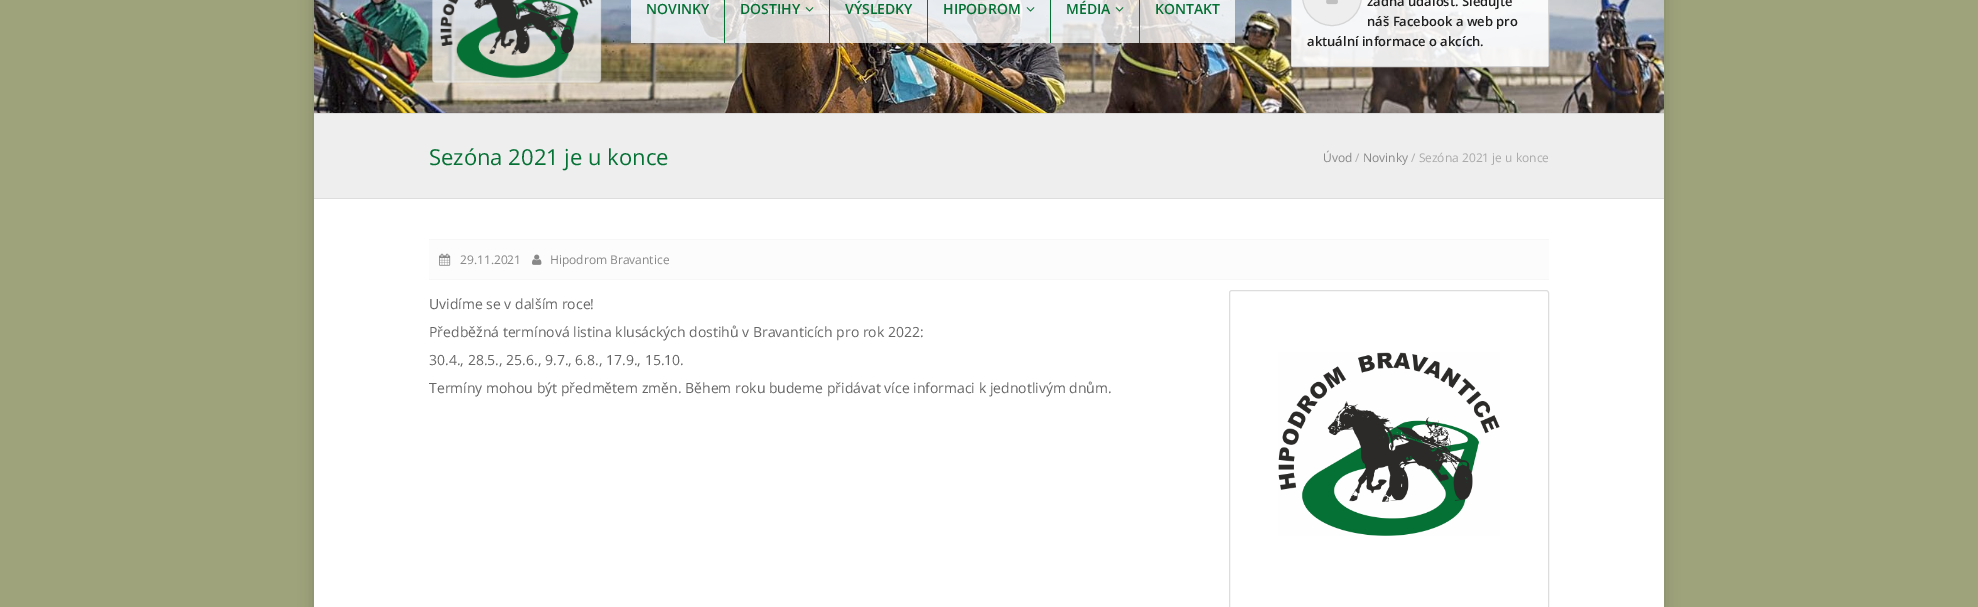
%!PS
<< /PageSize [1978 607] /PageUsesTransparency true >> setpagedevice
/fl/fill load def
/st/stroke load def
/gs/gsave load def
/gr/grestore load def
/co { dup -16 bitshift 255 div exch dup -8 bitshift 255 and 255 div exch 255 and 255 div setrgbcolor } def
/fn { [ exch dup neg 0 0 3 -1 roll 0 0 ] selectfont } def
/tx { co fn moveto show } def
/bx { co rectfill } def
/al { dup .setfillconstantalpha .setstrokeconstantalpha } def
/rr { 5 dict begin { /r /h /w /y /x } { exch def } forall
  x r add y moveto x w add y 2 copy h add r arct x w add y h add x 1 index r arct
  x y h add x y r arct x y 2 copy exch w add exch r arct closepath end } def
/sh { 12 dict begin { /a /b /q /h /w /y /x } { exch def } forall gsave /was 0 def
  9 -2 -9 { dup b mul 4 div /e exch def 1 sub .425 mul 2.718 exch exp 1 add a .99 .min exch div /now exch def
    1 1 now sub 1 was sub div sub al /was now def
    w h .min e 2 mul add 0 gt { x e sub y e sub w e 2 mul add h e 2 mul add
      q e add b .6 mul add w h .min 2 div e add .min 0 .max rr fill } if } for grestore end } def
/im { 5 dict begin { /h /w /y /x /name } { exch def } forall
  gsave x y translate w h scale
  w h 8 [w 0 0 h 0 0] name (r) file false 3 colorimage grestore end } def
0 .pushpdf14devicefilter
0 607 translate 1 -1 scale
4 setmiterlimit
0 0 1978 607 16#9EA37B bx
16#000000 co
314 -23 1350 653 0 7.5 .15 sh
314 199 1350 408 16#FFFFFF bx
(media/1.raw) 314 0 1350 113 im
(media/2.raw) 432 0 170 83 im
0.8 al
631 0 93 43 16#FFFFFF bx
1 al
724 0 1 43 16#067135 bx
0.8 al
725 0 104 43 16#FFFFFF bx
1 al
829 0 1 43 16#067135 bx
(media/3.raw) 805 7 9 5 im
0.8 al
830 0 97 43 16#FFFFFF bx
1 al
927 0 1 43 16#067135 bx
0.8 al
928 0 122 43 16#FFFFFF bx
1 al
1050 0 1 43 16#067135 bx
(media/4.raw) 1026 7 9 5 im
0.8 al
1051 0 88 43 16#FFFFFF bx
1 al
1139 0 1 43 16#067135 bx
(media/5.raw) 1115 7 9 5 im
0.8 al
1140 0 95 43 16#FFFFFF bx
1 al
16#D5D5D5 co
1291.5 -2.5 257 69 1.5 rr st
0.9 al
1292 0 256 66 16#FFFFFF bx
1 al
16#EEEEEE co
1302.5 -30.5 59 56 29.5 rr gs fl gr
16#D5D5D5 co
st
(media/6.raw) 1326 0 12 5 im
314 114 1350 84 16#EEEEEE bx
314 113 1350 1 16#DDDDDD bx
314 198 1350 1 16#DDDDDD bx
429 240 1120 39 16#FCFCFC bx
429 239 1120 1 16#F7F7F7 bx
429 279 1120 1 16#F7F7F7 bx
(media/7.raw) 439 253 12 13 im
(media/8.raw) 532 254 10 11 im
16#DDDDDD co
1229.5 290.5 319 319 2.5 rr st
(media/9.raw) 1278 352 222 184 im
(NOVINKY) 646 14 /OpenSans-SemiBold 14 16#067135 tx
(DOSTIHY) 740 14 /OpenSans-SemiBold 14 16#067135 tx
(VÝSLEDKY) 845 14 /OpenSans-SemiBold 14 16#067135 tx
(HIPODROM) 943 14 /OpenSans-SemiBold 14 16#067135 tx
(MÉDIA) 1066 14 /OpenSans-SemiBold 14 16#067135 tx
(KONTAKT) 1155 14 /OpenSans-SemiBold 14 16#067135 tx
(žádná událost. Sledujte) 1367 6 /OpenSans-SemiBold 13 16#202020 tx
(náš Facebook a web pro) 1367 26 /OpenSans-SemiBold 13 16#202020 tx
(aktuální informace o akcích.) 1307 46 /OpenSans-SemiBold 13 16#202020 tx
(Sezóna 2021 je u konce) 429 165 /OpenSans-Regular 22 16#067135 tx
(Úvod) 1323 162 /OpenSans-Regular 12 16#888888 tx
(/) 1355 162 /OpenSans-Regular 12 16#AAAAAA tx
(Novinky) 1363 162 /OpenSans-Regular 12 16#888888 tx
(/ Sezóna 2021 je u konce) 1411 162 /OpenSans-Regular 12 16#AAAAAA tx
(29.11.2021) 460 264 /OpenSans-Regular 12 16#888888 tx
(Hipodrom Bravantice) 550 264 /OpenSans-Regular 12 16#888888 tx
(Uvidíme se v dalším roce!) 429 309 /OpenSans-Regular 14 16#666666 tx
(Předběžná termínová listina klusáckých dostihů v Bravanticích pro rok 2022:) 429 337 /OpenSans-Regular 14 16#666666 tx
(30.4., 28.5., 25.6., 9.7., 6.8., 17.9., 15.10.) 429 365 /OpenSans-Regular 14 16#666666 tx
(Termíny mohou být předmětem změn. Během roku budeme přidávat více informaci k jednotlivým dnům.) 429 393 /OpenSans-Regular 14 16#666666 tx
.poppdf14devicefilter showpage
